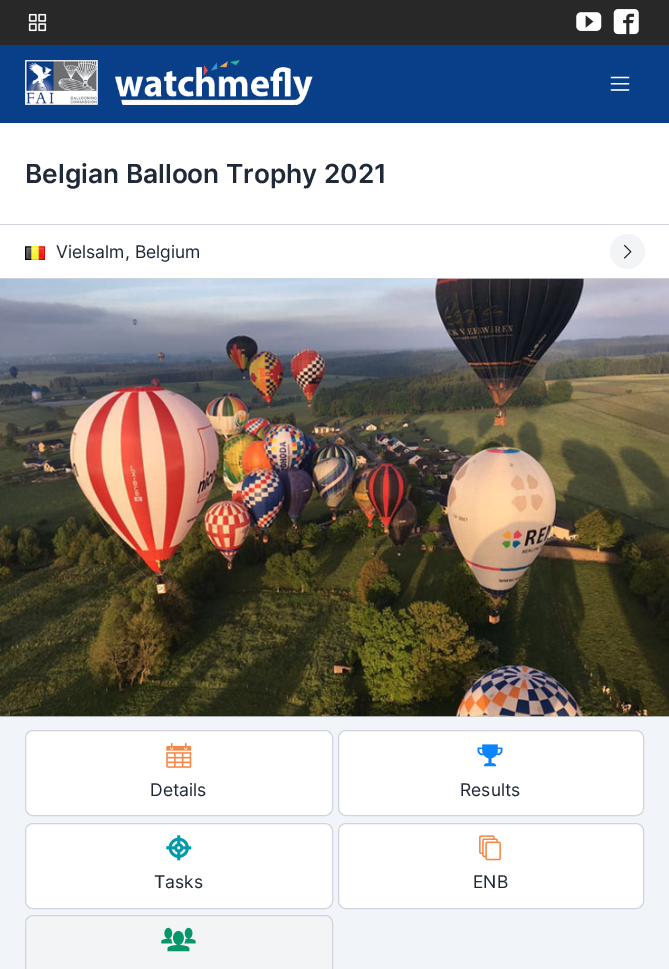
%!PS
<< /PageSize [669 969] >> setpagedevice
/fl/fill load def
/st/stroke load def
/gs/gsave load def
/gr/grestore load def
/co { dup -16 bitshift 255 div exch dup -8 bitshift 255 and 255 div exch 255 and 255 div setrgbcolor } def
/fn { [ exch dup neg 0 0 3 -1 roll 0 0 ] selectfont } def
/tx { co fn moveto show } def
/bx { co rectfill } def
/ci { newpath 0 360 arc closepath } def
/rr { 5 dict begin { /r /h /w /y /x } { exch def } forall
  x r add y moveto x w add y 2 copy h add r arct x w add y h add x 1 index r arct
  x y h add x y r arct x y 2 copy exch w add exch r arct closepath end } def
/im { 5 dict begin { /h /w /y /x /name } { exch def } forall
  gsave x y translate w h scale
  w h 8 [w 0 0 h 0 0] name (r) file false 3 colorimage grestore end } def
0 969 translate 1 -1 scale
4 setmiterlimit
0 0 669 969 16#F1F4F9 bx
0 0 669 45 16#282828 bx
(media/1.raw) 28 13 19 19 im
(media/2.raw) 576 12 26 19 im
(media/3.raw) 613 9 26 26 im
0 45 669 78 16#093F89 bx
(media/4.raw) 25 60 288 45 im
(media/5.raw) 610 76 20 15 im
0 123 669 155 16#FFFFFF bx
0 224 669 1 16#D1D5DB bx
(media/6.raw) 25 246 20 14 im
16#F3F4F6 co
627.5 251.5 17.5 ci fl
(media/7.raw) 624 244 8 15 im
0 278 669 1 16#D1D5DB bx
0 716 669 1 16#D1D5DB bx
(media/8.raw) 0 278 669 439 im
16#FFFFFF co
25.5 730.5 307 85 7.5 rr gs fl gr
16#D1D5DB co
st
(media/9.raw) 166 742 26 26 im
16#FFFFFF co
338.5 730.5 305 85 7.5 rr gs fl gr
16#D1D5DB co
st
(media/10.raw) 477 744 26 23 im
16#FFFFFF co
25.5 823.5 307 85 7.5 rr gs fl gr
16#D1D5DB co
st
(media/11.raw) 166 835 26 26 im
16#FFFFFF co
338.5 823.5 305 85 7.5 rr gs fl gr
16#D1D5DB co
st
(media/12.raw) 479 835 22 26 im
16#F3F4F6 co
25.5 915.5 307 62 7.5 rr gs fl gr
16#D1D5DB co
st
(media/13.raw) 161 927 35 25 im
(Belgian Balloon Trophy 2021) 25 183 /Inter-SemiBold 26.25 16#1F2937 tx
(Vielsalm, Belgium) 56 258 /Inter-Regular 17.5 16#1F2937 tx
(Details) 150 796 /Inter-Regular 17.5 16#1F2937 tx
(Results) 460 796 /Inter-Regular 17.5 16#1F2937 tx
(Tasks) 154 888 /Inter-Regular 17.5 16#1F2937 tx
(ENB) 473 888 /Inter-Regular 17.5 16#1F2937 tx
showpage
